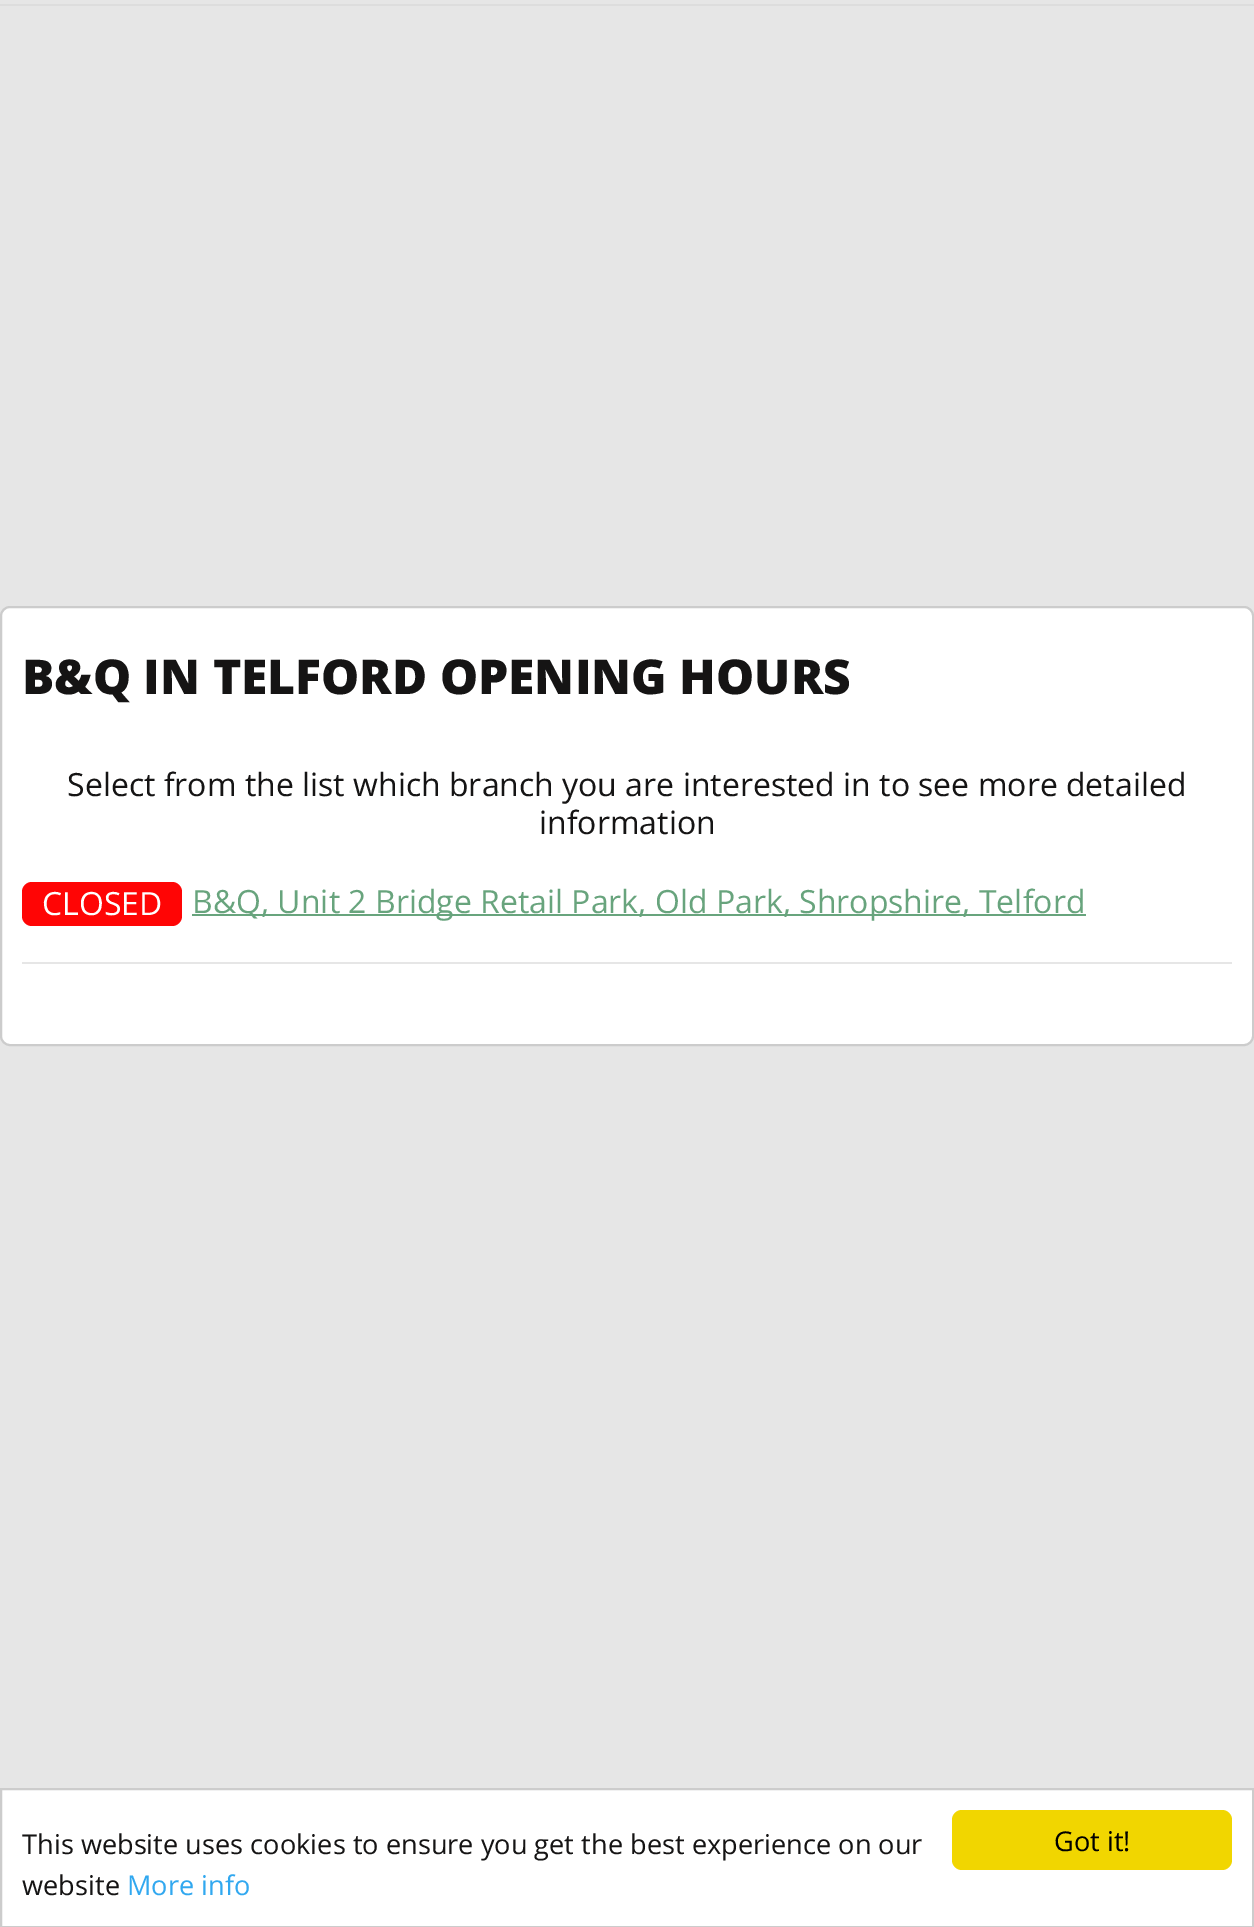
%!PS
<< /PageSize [1254 1927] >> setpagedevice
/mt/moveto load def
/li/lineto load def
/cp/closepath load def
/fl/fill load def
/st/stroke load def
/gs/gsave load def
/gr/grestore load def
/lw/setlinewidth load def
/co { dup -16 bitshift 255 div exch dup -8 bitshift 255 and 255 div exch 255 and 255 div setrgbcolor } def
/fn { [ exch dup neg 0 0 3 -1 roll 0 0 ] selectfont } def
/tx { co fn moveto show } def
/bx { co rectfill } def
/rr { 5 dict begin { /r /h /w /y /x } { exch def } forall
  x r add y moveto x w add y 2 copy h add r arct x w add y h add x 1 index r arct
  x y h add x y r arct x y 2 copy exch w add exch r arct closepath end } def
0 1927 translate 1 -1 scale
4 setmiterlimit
0 0 1254 1927 16#E6E6E6 bx
0 4 1254 2 16#DDDDDD bx
16#FFFFFF co
1 607 1252 438 9 rr gs fl gr
16#CCCCCC co
2 lw
st
22 962 1210 2 16#E6E6E6 bx
16#FF0505 co
22 882 160 44 10 rr fl
192 914 894 2 16#68A47D bx
16#FFFFFF co
1 1789 mt 1253 1789 li 1253 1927 li 1 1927 li cp gs fl gr
16#CCCCCC co
st
16#F1D600 co
952 1810 280 60 10 rr fl
(B&Q IN TELFORD OPENING HOURS) 22 694 /OpenSans-ExtraBold 48 16#151414 tx
(Select from the list which branch you are interested in to see more detailed) 67 796 /OpenSans-Regular 32 16#151414 tx
(information) 539 834 /OpenSans-Regular 32 16#151414 tx
(CLOSED) 42 915 /OpenSans-Regular 32 16#FFFFFF tx
(B&Q, Unit 2 Bridge Retail Park, Old Park, Shropshire, Telford) 192 913 /OpenSans-Regular 32 16#68A47D tx
(This website uses cookies to ensure you get the best experience on our) 22 1854 /OpenSans-Regular 27.2 16#151414 tx
(website) 22 1895 /OpenSans-Regular 27.2 16#151414 tx
(More info) 127 1895 /OpenSans-Regular 27.2 16#31A8F0 tx
(Got it!) 1054 1851 /OpenSans-Regular 27.2 16#000000 tx
showpage
